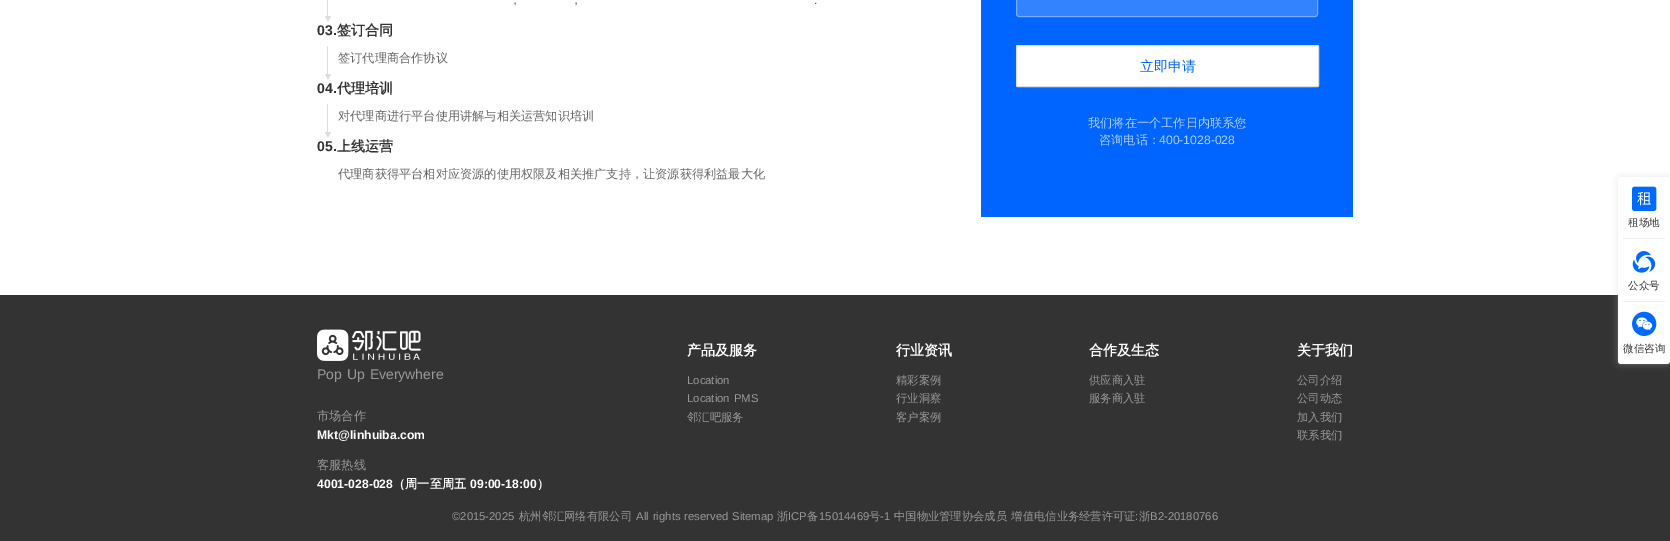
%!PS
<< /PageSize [1670 541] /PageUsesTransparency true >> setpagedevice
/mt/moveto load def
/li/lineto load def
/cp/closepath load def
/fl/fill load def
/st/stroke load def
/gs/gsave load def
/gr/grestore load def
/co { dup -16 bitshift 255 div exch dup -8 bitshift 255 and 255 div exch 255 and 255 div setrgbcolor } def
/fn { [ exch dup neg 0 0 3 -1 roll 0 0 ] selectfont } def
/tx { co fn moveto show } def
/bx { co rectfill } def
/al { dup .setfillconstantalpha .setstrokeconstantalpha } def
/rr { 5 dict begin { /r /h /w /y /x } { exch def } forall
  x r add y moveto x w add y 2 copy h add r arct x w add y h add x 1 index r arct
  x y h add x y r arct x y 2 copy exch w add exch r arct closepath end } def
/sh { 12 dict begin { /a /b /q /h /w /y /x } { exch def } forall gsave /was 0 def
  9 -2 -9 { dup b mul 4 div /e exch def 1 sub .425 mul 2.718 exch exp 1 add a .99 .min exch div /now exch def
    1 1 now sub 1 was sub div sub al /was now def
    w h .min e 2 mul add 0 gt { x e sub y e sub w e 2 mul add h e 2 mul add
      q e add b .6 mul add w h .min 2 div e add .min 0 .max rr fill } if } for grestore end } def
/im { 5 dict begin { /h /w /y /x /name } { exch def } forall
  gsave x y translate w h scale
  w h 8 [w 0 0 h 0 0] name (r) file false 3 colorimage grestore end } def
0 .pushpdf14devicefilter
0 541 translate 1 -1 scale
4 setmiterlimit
0 0 1670 541 16#FFFFFF bx
327 0 1 16 16#DDDDDD bx
325 16 mt 331 16 li 328 22 li cp fl
327 46 1 28 16#DDDDDD bx
325 74 mt 331 74 li 328 80 li cp fl
327 104 1 28 16#DDDDDD bx
325 132 mt 331 132 li 328 138 li cp fl
981 0 372 217 16#0064FF bx
16#3383FF co
1016.5 -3.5 301 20 2.5 rr gs fl gr
16#73AAFF co
st
16#FFFFFF co
1016.5 45.5 302 41 1 rr gs fl gr
16#DCDFE6 co
st
0 295 1670 246 16#333333 bx
16#CCCCCC co
1618 177 52 187 3 3.5 .4 sh
16#FFFFFF co
1618 177 52 187 3 rr fl
(media/1.raw) 1632 186 25 26 im
1623 238 42 1 16#EEEEEE bx
(media/2.raw) 1632 251 24 22 im
1623 301 42 1 16#EEEEEE bx
(media/3.raw) 1632 311 25 25 im
(media/4.raw) 317 329 104 32 im
(，) 509 4 /WenQuanYiZenHei-Medium 12.2 16#666666 tx
(，) 570 4 /WenQuanYiZenHei-Medium 12.2 16#666666 tx
(.) 814 4 /LiberationSans-Regular 12.2 16#666666 tx
(03.) 317 35 /LiberationSans-Bold 14 16#333333 tx
(签订合同) 337 35 /WenQuanYiZenHei-Bold 14 16#333333 tx
(签订代理商合作协议) 338 62 /WenQuanYiZenHei-Medium 12.2 16#666666 tx
(04.) 317 93 /LiberationSans-Bold 14 16#333333 tx
(代理培训) 337 93 /WenQuanYiZenHei-Bold 14 16#333333 tx
(对代理商进行平台使用讲解与相关运营知识培训) 338 120 /WenQuanYiZenHei-Medium 12.2 16#666666 tx
(05.) 317 151 /LiberationSans-Bold 14 16#333333 tx
(上线运营) 337 151 /WenQuanYiZenHei-Bold 14 16#333333 tx
(代理商获得平台相对应资源的使用权限及相关推广支持，让资源获得利益最大化) 338 178 /WenQuanYiZenHei-Medium 12.2 16#666666 tx
(立即申请) 1140 71 /WenQuanYiZenHei-Medium 14 16#0064FF tx
(我们将在一个工作日内联系您) 1088 127 /WenQuanYiZenHei-Medium 12.2 16#AFCEFF tx
(咨询电话：) 1099 144 /WenQuanYiZenHei-Medium 12.2 16#AFCEFF tx
(400-1028-028) 1159 144 /LiberationSans-Regular 12.2 16#AFCEFF tx
(租场地) 1628 226 /WenQuanYiZenHei-Medium 10.5 16#333333 tx
(公众号) 1628 289 /WenQuanYiZenHei-Medium 10.5 16#333333 tx
(微信咨询) 1623 352 /WenQuanYiZenHei-Medium 10.5 16#333333 tx
/LiberationSans-Regular 14 fn
16#999999 co
317 379 mt 1 0 32 (Pop Up Everywhere) widthshow
(市场合作) 317 420 /WenQuanYiZenHei-Medium 12.2 16#999999 tx
(Mkt@linhuiba.com) 317 439 /LiberationSans-Bold 12.2 16#FFFFFF tx
(客服热线) 317 469 /WenQuanYiZenHei-Medium 12.2 16#999999 tx
(4001-028-028) 317 488 /LiberationSans-Bold 12.2 16#FFFFFF tx
(（周一至周五) 393 488 /WenQuanYiZenHei-Bold 12.2 16#FFFFFF tx
(09:00-18:00) 470 488 /LiberationSans-Bold 12.2 16#FFFFFF tx
(）) 537 488 /WenQuanYiZenHei-Bold 12.2 16#FFFFFF tx
(产品及服务) 687 355 /WenQuanYiZenHei-Bold 14 16#FFFFFF tx
(Location) 687 384 /LiberationSans-Regular 11.3 16#999999 tx
687 402 mt 1 0 32 (Location PMS) widthshow
(邻汇吧服务) 687 421 /WenQuanYiZenHei-Medium 11.3 16#999999 tx
(行业资讯) 896 355 /WenQuanYiZenHei-Bold 14 16#FFFFFF tx
(精彩案例) 896 384 /WenQuanYiZenHei-Medium 11.3 16#999999 tx
(行业洞察) 896 402 /WenQuanYiZenHei-Medium 11.3 16#999999 tx
(客户案例) 896 421 /WenQuanYiZenHei-Medium 11.3 16#999999 tx
(合作及生态) 1089 355 /WenQuanYiZenHei-Bold 14 16#FFFFFF tx
(供应商入驻) 1089 384 /WenQuanYiZenHei-Medium 11.3 16#999999 tx
(服务商入驻) 1089 402 /WenQuanYiZenHei-Medium 11.3 16#999999 tx
(关于我们) 1297 355 /WenQuanYiZenHei-Bold 14 16#FFFFFF tx
(公司介绍) 1297 384 /WenQuanYiZenHei-Medium 11.3 16#999999 tx
(公司动态) 1297 402 /WenQuanYiZenHei-Medium 11.3 16#999999 tx
(加入我们) 1297 421 /WenQuanYiZenHei-Medium 11.3 16#999999 tx
(联系我们) 1297 439 /WenQuanYiZenHei-Medium 11.3 16#999999 tx
(©2015-2025) 452 520 /LiberationSans-Regular 11.3 16#999999 tx
(杭州邻汇网络有限公司) 519 520 /WenQuanYiZenHei-Medium 11.3 16#999999 tx
/LiberationSans-Regular 11.3 fn
636 520 mt 1 0 32 (All rights reserved) widthshow
(Sitemap) 732 520 /LiberationSans-Regular 11.3 16#999999 tx
(浙) 777 520 /WenQuanYiZenHei-Medium 11.3 16#999999 tx
(ICP) 788 520 /LiberationSans-Regular 11.3 16#999999 tx
(备) 807 520 /WenQuanYiZenHei-Medium 11.3 16#999999 tx
(15014469) 819 520 /LiberationSans-Regular 11.3 16#999999 tx
(号) 869 520 /WenQuanYiZenHei-Medium 11.3 16#999999 tx
(-1) 880 520 /LiberationSans-Regular 11.3 16#999999 tx
/WenQuanYiZenHei-Medium 11.3 fn
894 520 mt 1 0 32 (中国物业管理协会成员 增值电信业务经营许可证) widthshow
(:) 1135 520 /LiberationSans-Regular 11.3 16#999999 tx
(浙) 1139 520 /WenQuanYiZenHei-Medium 11.3 16#999999 tx
(B2-20180766) 1150 520 /LiberationSans-Regular 11.3 16#999999 tx
.poppdf14devicefilter showpage
